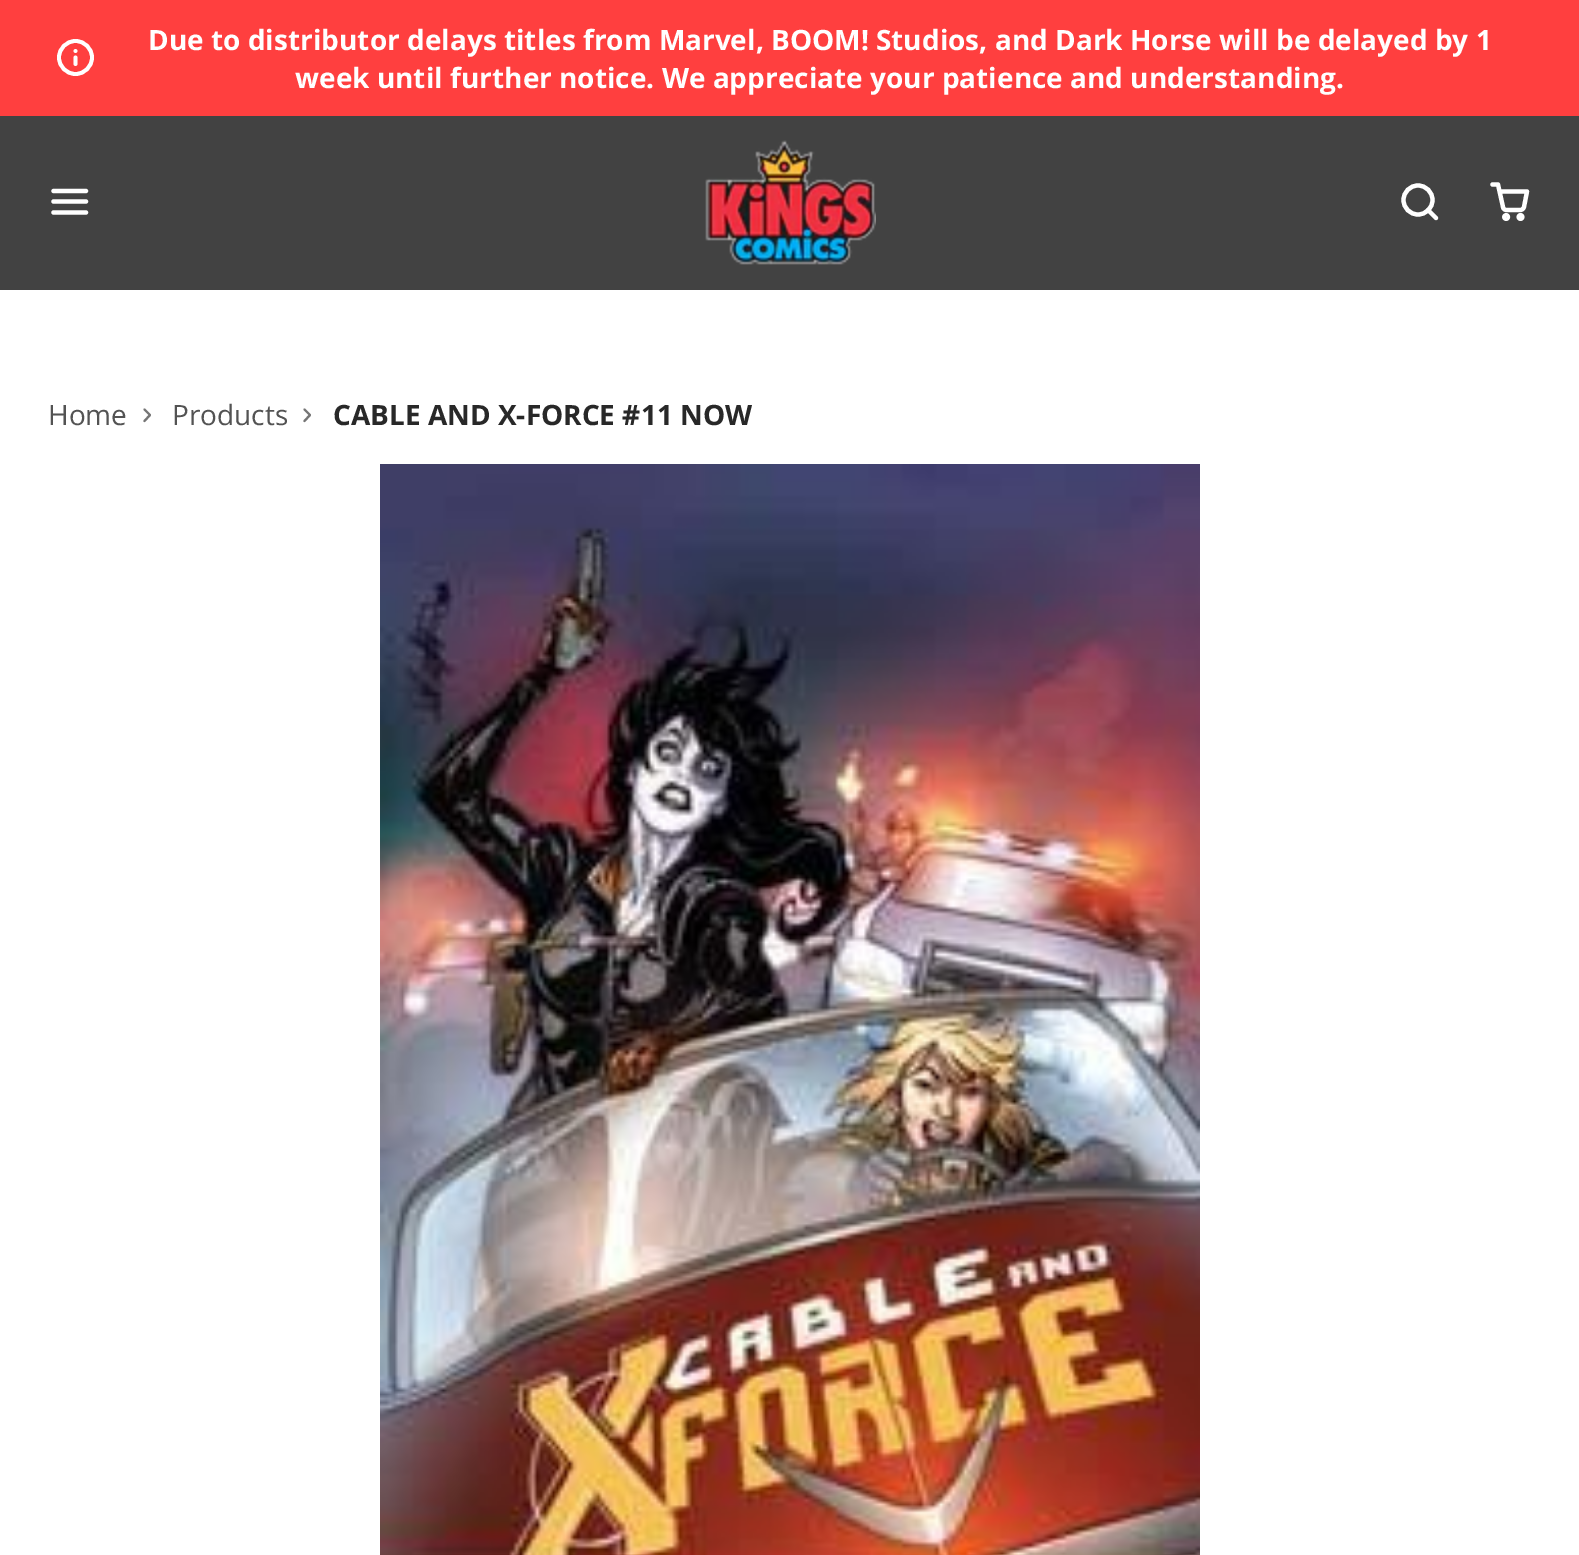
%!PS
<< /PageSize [1579 1555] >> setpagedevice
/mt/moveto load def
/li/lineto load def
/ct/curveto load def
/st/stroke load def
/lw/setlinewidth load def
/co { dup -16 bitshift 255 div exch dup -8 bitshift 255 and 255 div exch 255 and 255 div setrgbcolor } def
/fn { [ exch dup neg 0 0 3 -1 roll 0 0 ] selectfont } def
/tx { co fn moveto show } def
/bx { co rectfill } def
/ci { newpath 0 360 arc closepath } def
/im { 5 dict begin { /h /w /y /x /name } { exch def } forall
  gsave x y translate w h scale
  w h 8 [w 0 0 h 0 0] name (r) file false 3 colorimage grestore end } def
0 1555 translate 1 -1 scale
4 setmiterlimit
0 0 1579 1555 16#FFFFFF bx
0 0 1579 116 16#FF3F3F bx
16#FFFFFF co
3.8 lw
75.5 57.5 16.5 ci st
1 setlinecap
1 setlinejoin
75.5 64 mt 75.5 57.5 li 75.5 51 mt 75.5 51 li st
0 116 1579 174 16#424242 bx
16#FFFFFF co
4.2 lw
53.5 201.5 mt 86 201.5 li 53.5 191 mt 86 191 li 53.5 212.5 mt 86 212.5 li st
(media/1.raw) 705 140 171 125 im
0 setlinecap
0 setlinejoin
1418 200 14.5 ci st
1 setlinecap
1 setlinejoin
1436 218 mt 1428 210 li st
0 setlinecap
0 setlinejoin
1506.1 217 1.8 ci st
1520.5 217 1.8 ci st
1 setlinecap
1 setlinejoin
1492.5 184.5 mt 1498 184.5 li 1503 207 li 1503 208.5 1504.5 210 1506.5 210 ct 1520.5 210 li 1522 210 1523.5 208.5 1524 207 ct 1527 191.5 li 1501 191.5 li st
16#757575 co
2.1 lw
144.5 421 mt 150 415 li 144.5 409.5 li st
304.5 421 mt 310 415 li 304.5 409.5 li st
(media/2.raw) 380 464 820 1091 im
(Due to distributor delays titles from Marvel, BOOM! Studios, and Dark Horse will be delayed by 1) 148 50 /OpenSans-Bold 28 16#FFFFFF tx
(week until further notice. We appreciate your patience and understanding.) 295 88 /OpenSans-Bold 28 16#FFFFFF tx
(Home) 48 425 /OpenSans-Regular 28 16#535353 tx
(Products) 172 425 /OpenSans-Regular 28 16#535353 tx
(CABLE AND X-FORCE #11 NOW) 333 425 /OpenSans-Bold 28 16#282828 tx
showpage
